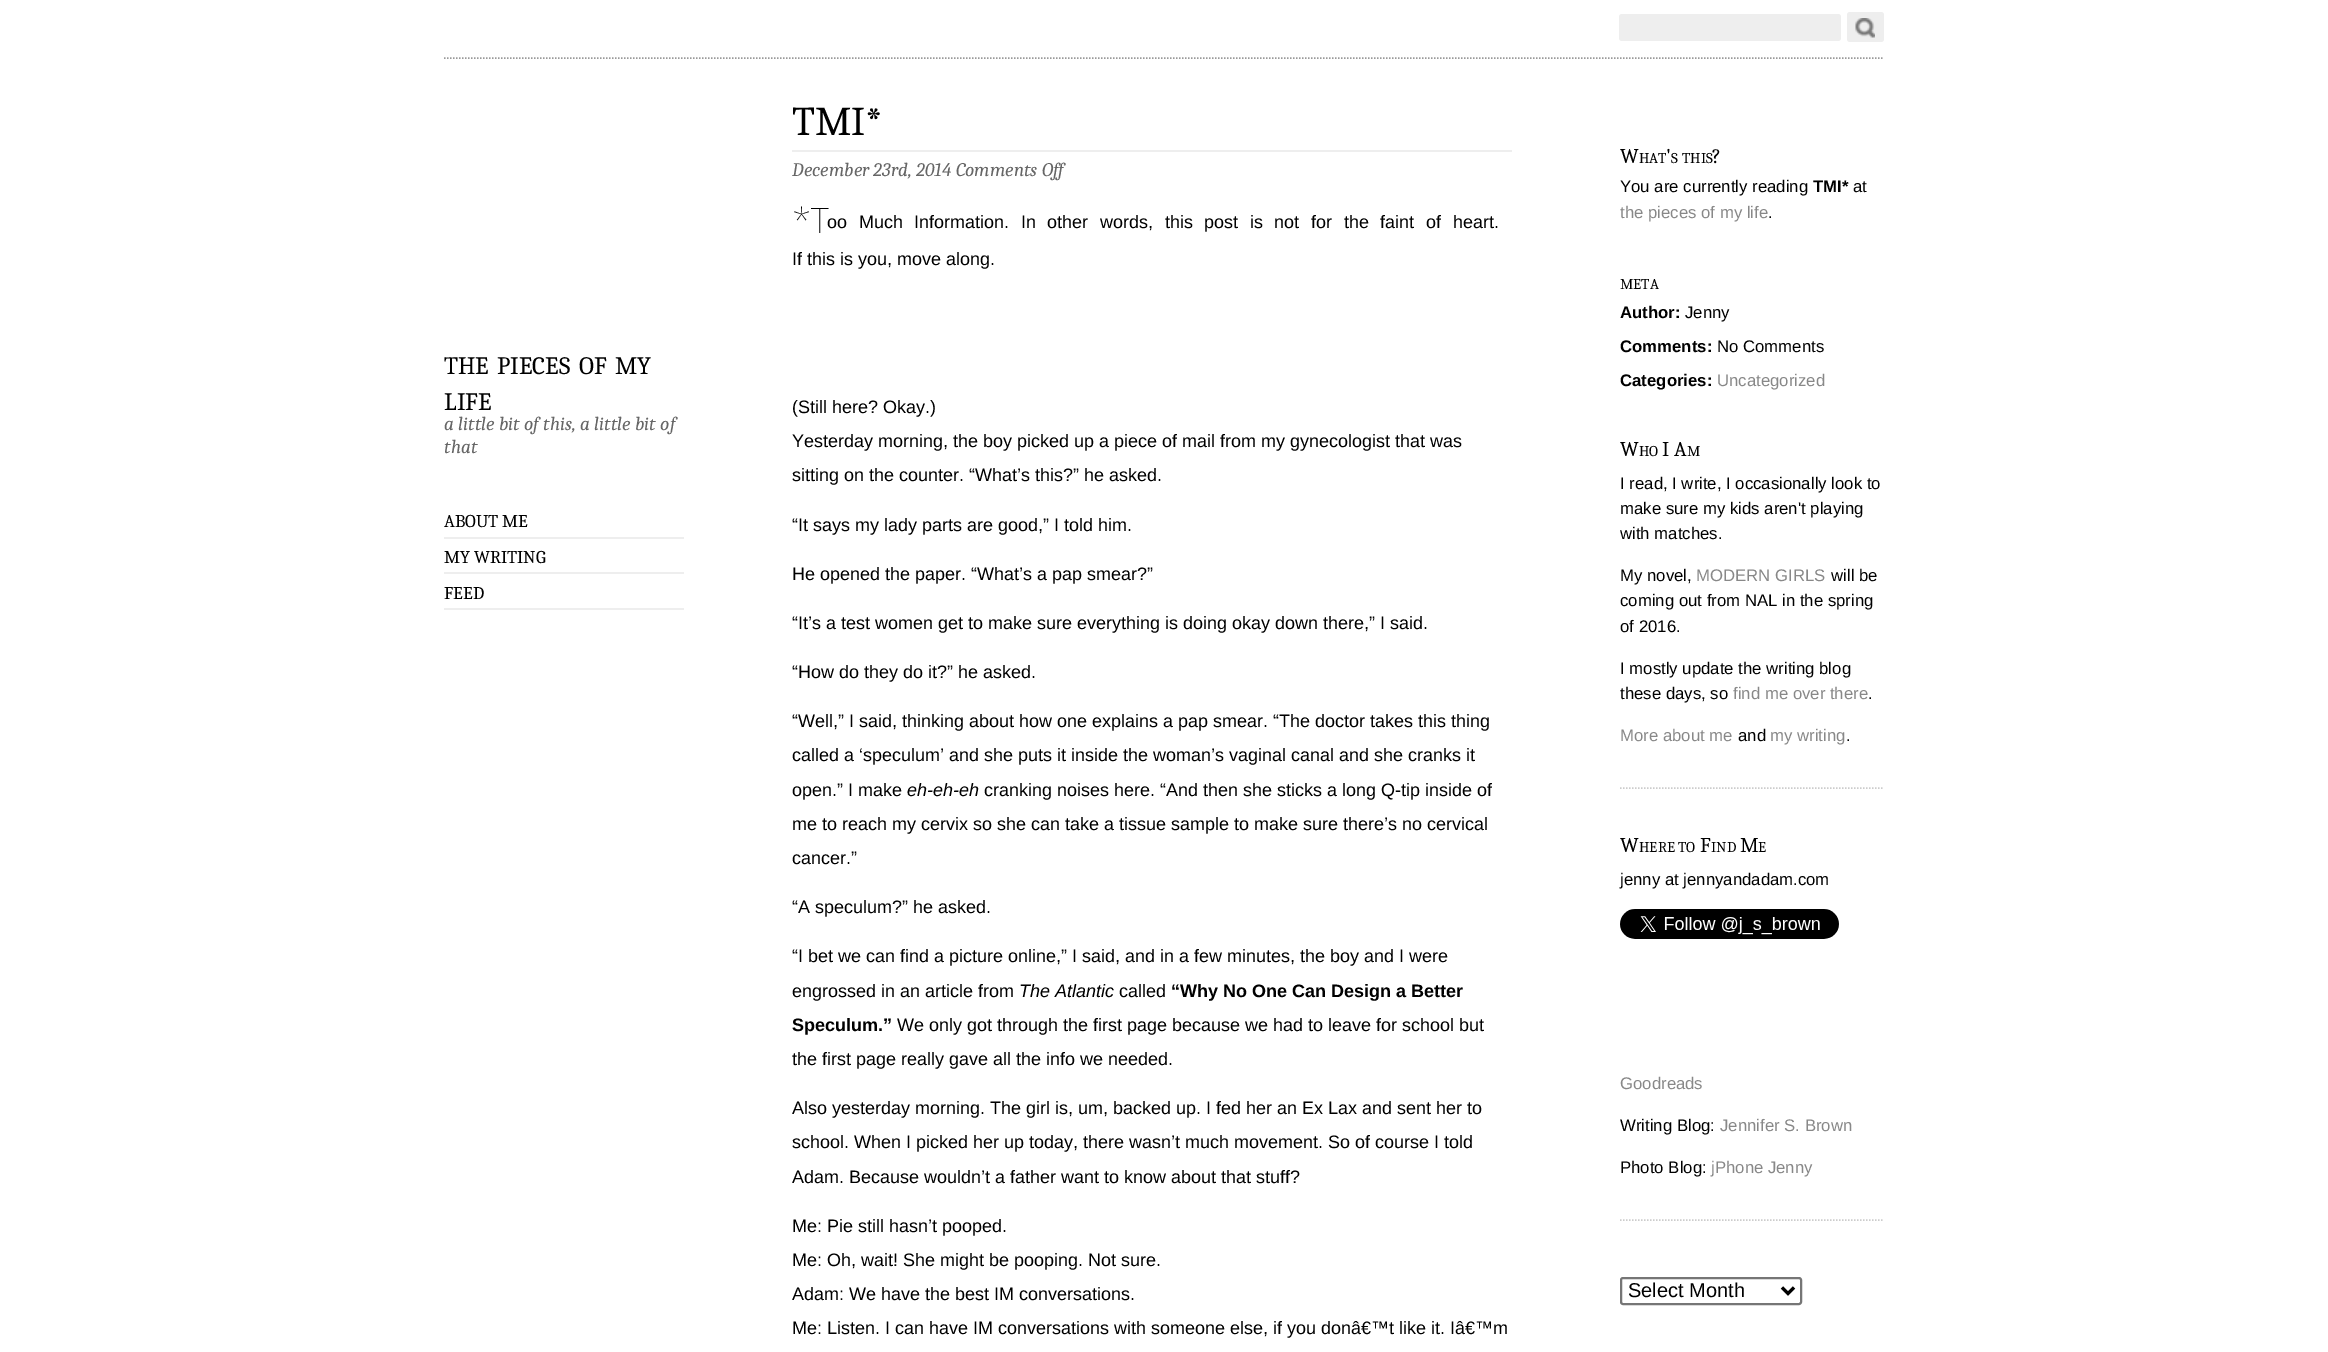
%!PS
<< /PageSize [2328 1352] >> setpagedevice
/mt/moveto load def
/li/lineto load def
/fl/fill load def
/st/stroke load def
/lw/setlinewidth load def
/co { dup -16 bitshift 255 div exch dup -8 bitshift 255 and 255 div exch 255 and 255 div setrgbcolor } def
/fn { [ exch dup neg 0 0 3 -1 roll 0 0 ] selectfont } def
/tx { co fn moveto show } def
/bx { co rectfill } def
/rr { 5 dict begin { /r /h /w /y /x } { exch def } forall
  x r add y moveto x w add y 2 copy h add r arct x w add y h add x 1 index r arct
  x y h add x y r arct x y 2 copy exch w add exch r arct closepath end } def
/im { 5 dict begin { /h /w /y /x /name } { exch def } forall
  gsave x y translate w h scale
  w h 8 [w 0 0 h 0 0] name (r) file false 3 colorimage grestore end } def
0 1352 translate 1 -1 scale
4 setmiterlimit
0 0 2328 1352 16#FFFFFF bx
16#999999 co
1.5 lw
[1.5 1.5] 0 setdash
444 58 mt 1884 58 li st
16#EEEEEE co
1619 14 222 27 3 rr fl
1847 12 37 30 3 rr fl
(media/1.raw) 1855 18 20 20 im
444 537 240 2 16#EEEEEE bx
444 572 240 2 16#EEEEEE bx
444 608 240 2 16#EEEEEE bx
792 150 720 2 16#EEEEEE bx
16#CCCCCC co
1620 788 mt 1884 788 li st
1620 1220 mt 1884 1220 li st
(media/2.raw) 1620 909 219 30 im
16#767676 co
2 lw
[] 0 setdash
1621 1278 180 26 2 rr st
16#000000 co
3 lw
1782 1287.5 mt 1788 1293.5 li 1794 1287.5 li st
(THE) 444 374 /Caladea-Regular 25 16#000000 tx
(PIECES) 497 374 /Caladea-Regular 25 16#000000 tx
(OF) 579 374 /Caladea-Regular 25 16#000000 tx
(MY) 615 374 /Caladea-Regular 25 16#000000 tx
(LIFE) 444 410 /Caladea-Regular 25 16#000000 tx
(a little bit of this, a little bit of) 444 430 /Caladea-Italic 19.25 16#666666 tx
(that) 444 453 /Caladea-Italic 19.25 16#666666 tx
(ABOUT ME) 444 527 /Caladea-Regular 18 16#000000 tx
(MY WRITING) 444 563 /Caladea-Regular 18 16#000000 tx
(FEED) 444 599 /Caladea-Regular 18 16#000000 tx
(TMI*) 792 135 /Caladea-Regular 41 16#000000 tx
(December 23rd, 2014 Comments Off) 792 176 /Caladea-Italic 19.25 16#666666 tx
(*T) 792 233 /NotoSans-Thin 35 16#000000 tx
/LiberationSans-Regular 18 fn
827 228 mt 6.6 0 32 (oo Much Information. In other words, this post is not for the faint of heart.) widthshow
(If this is you, move along.) 792 265 /LiberationSans-Regular 18 16#000000 tx
(\(Still here? Okay.\)) 792 413 /LiberationSans-Regular 18 16#000000 tx
(Yesterday morning, the boy picked up a piece of mail from my gynecologist that was) 792 447 /LiberationSans-Regular 18 16#000000 tx
(sitting on the counter. “What’s this?” he asked.) 792 481 /LiberationSans-Regular 18 16#000000 tx
(“It says my lady parts are good,” I told him.) 792 531 /LiberationSans-Regular 18 16#000000 tx
(He opened the paper. “What’s a pap smear?”) 792 580 /LiberationSans-Regular 18 16#000000 tx
(“It’s a test women get to make sure everything is doing okay down there,” I said.) 792 629 /LiberationSans-Regular 18 16#000000 tx
(“How do they do it?” he asked.) 792 678 /LiberationSans-Regular 18 16#000000 tx
(“Well,” I said, thinking about how one explains a pap smear. “The doctor takes this thing) 792 727 /LiberationSans-Regular 18 16#000000 tx
(called a ‘speculum’ and she puts it inside the woman’s vaginal canal and she cranks it) 792 761 /LiberationSans-Regular 18 16#000000 tx
(open.” I make) 792 796 /LiberationSans-Regular 18 16#000000 tx
(eh-eh-eh) 907 796 /LiberationSans-Italic 18 16#000000 tx
(cranking noises here. “And then she sticks a long Q-tip inside of) 984 796 /LiberationSans-Regular 18 16#000000 tx
(me to reach my cervix so she can take a tissue sample to make sure there’s no cervical) 792 830 /LiberationSans-Regular 18 16#000000 tx
(cancer.”) 792 864 /LiberationSans-Regular 18 16#000000 tx
(“A speculum?” he asked.) 792 913 /LiberationSans-Regular 18 16#000000 tx
(“I bet we can find a picture online,” I said, and in a few minutes, the boy and I were) 792 962 /LiberationSans-Regular 18 16#000000 tx
(engrossed in an article from) 792 997 /LiberationSans-Regular 18 16#000000 tx
(The Atlantic) 1019 997 /LiberationSans-Italic 18 16#000000 tx
(called) 1119 997 /LiberationSans-Regular 18 16#000000 tx
(“Why No One Can Design a Better) 1171 997 /LiberationSans-Bold 18 16#000000 tx
(Speculum.”) 792 1031 /LiberationSans-Bold 18 16#000000 tx
(We only got through the first page because we had to leave for school but) 897 1031 /LiberationSans-Regular 18 16#000000 tx
(the first page really gave all the info we needed.) 792 1065 /LiberationSans-Regular 18 16#000000 tx
(Also yesterday morning. The girl is, um, backed up. I fed her an Ex Lax and sent her to) 792 1114 /LiberationSans-Regular 18 16#000000 tx
(school. When I picked her up today, there wasn’t much movement. So of course I told) 792 1148 /LiberationSans-Regular 18 16#000000 tx
(Adam. Because wouldn’t a father want to know about that stuff?) 792 1183 /LiberationSans-Regular 18 16#000000 tx
(Me: Pie still hasn’t pooped.) 792 1232 /LiberationSans-Regular 18 16#000000 tx
(Me: Oh, wait! She might be pooping. Not sure.) 792 1266 /LiberationSans-Regular 18 16#000000 tx
(Adam: We have the best IM conversations.) 792 1300 /LiberationSans-Regular 18 16#000000 tx
(Me: Listen. I can have IM conversations with someone else, if you donâ€™t like it. Iâ€™m) 792 1334 /LiberationSans-Regular 18 16#000000 tx
(W) 1620 163 /Caladea-Regular 21 16#000000 tx
(HAT) 1639 163 /Caladea-Regular 15 16#000000 tx
(') 1666 163 /Caladea-Regular 21 16#000000 tx
(S) 1671 163 /Caladea-Regular 15 16#000000 tx
(THIS) 1682 163 /Caladea-Regular 15 16#000000 tx
(?) 1712 163 /Caladea-Regular 21 16#000000 tx
(You are currently reading) 1620 192 /LiberationSans-Regular 16.75 16#000000 tx
(TMI*) 1813 192 /LiberationSans-Bold 16.75 16#000000 tx
(at) 1853 192 /LiberationSans-Regular 16.75 16#000000 tx
(the pieces of my life) 1620 218 /LiberationSans-Regular 16.75 16#888888 tx
(.) 1768 218 /LiberationSans-Regular 16.75 16#000000 tx
(META) 1620 289 /Caladea-Regular 15 16#000000 tx
(Author:) 1620 318 /LiberationSans-Bold 16.75 16#000000 tx
(Jenny) 1685 318 /LiberationSans-Regular 16.75 16#000000 tx
(Comments:) 1620 352 /LiberationSans-Bold 16.75 16#000000 tx
(No Comments) 1717 352 /LiberationSans-Regular 16.75 16#000000 tx
(Categories:) 1620 386 /LiberationSans-Bold 16.75 16#000000 tx
(Uncategorized) 1717 386 /LiberationSans-Regular 16.75 16#888888 tx
(W) 1620 456 /Caladea-Regular 21 16#000000 tx
(HO) 1639 456 /Caladea-Regular 15 16#000000 tx
(I A) 1662 456 /Caladea-Regular 21 16#000000 tx
(M) 1687 456 /Caladea-Regular 15 16#000000 tx
(I read, I write, I occasionally look to) 1620 489 /LiberationSans-Regular 16.75 16#000000 tx
(make sure my kids aren't playing) 1620 514 /LiberationSans-Regular 16.75 16#000000 tx
(with matches.) 1620 539 /LiberationSans-Regular 16.75 16#000000 tx
(My novel,) 1620 581 /LiberationSans-Regular 16.75 16#000000 tx
(MODERN GIRLS) 1696 581 /LiberationSans-Regular 16.75 16#888888 tx
(will be) 1831 581 /LiberationSans-Regular 16.75 16#000000 tx
(coming out from NAL in the spring) 1620 606 /LiberationSans-Regular 16.75 16#000000 tx
(of 2016.) 1620 632 /LiberationSans-Regular 16.75 16#000000 tx
(I mostly update the writing blog) 1620 674 /LiberationSans-Regular 16.75 16#000000 tx
(these days, so) 1620 699 /LiberationSans-Regular 16.75 16#000000 tx
(find me over there) 1733 699 /LiberationSans-Regular 16.75 16#888888 tx
(.) 1868 699 /LiberationSans-Regular 16.75 16#000000 tx
(More about me) 1620 741 /LiberationSans-Regular 16.75 16#888888 tx
(and) 1738 741 /LiberationSans-Regular 16.75 16#000000 tx
(my writing) 1770 741 /LiberationSans-Regular 16.75 16#888888 tx
(.) 1846 741 /LiberationSans-Regular 16.75 16#000000 tx
(W) 1620 852 /Caladea-Regular 21 16#000000 tx
(HERE) 1639 852 /Caladea-Regular 15 16#000000 tx
(TO) 1678 852 /Caladea-Regular 15 16#000000 tx
(F) 1700 852 /Caladea-Regular 21 16#000000 tx
(IND) 1711 852 /Caladea-Regular 15 16#000000 tx
(M) 1740 852 /Caladea-Regular 21 16#000000 tx
(E) 1758 852 /Caladea-Regular 15 16#000000 tx
(jenny at jennyandadam.com) 1620 885 /LiberationSans-Regular 16.75 16#000000 tx
(Goodreads) 1620 1089 /LiberationSans-Regular 16.75 16#888888 tx
(Writing Blog:) 1620 1131 /LiberationSans-Regular 16.75 16#000000 tx
(Jennifer S. Brown) 1720 1131 /LiberationSans-Regular 16.75 16#888888 tx
(Photo Blog:) 1620 1173 /LiberationSans-Regular 16.75 16#000000 tx
(jPhone Jenny) 1711 1173 /LiberationSans-Regular 16.75 16#888888 tx
(Select Month) 1628 1297 /LiberationSans-Regular 20 16#000000 tx
showpage
